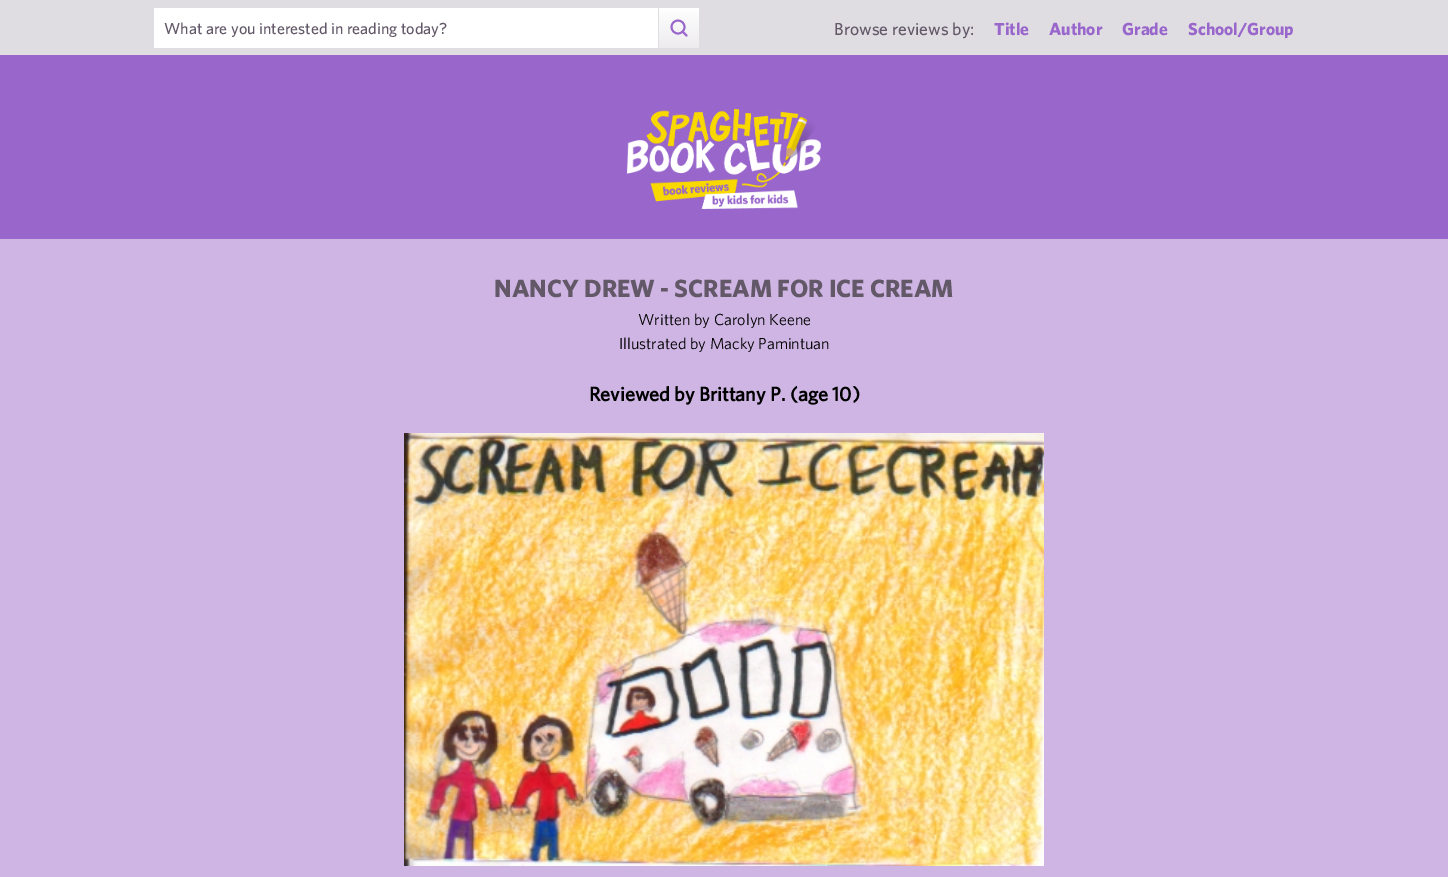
%!PS
<< /PageSize [1448 877] >> setpagedevice
/mt/moveto load def
/li/lineto load def
/cp/closepath load def
/st/stroke load def
/gs/gsave load def
/gr/grestore load def
/lw/setlinewidth load def
/co { dup -16 bitshift 255 div exch dup -8 bitshift 255 and 255 div exch 255 and 255 div setrgbcolor } def
/fn { [ exch dup neg 0 0 3 -1 roll 0 0 ] selectfont } def
/tx { co fn moveto show } def
/bx { co rectfill } def
/ci { newpath 0 360 arc closepath } def
/im { 5 dict begin { /h /w /y /x /name } { exch def } forall
  gsave x y translate w h scale
  w h 8 [w 0 0 h 0 0] name (r) file false 3 colorimage grestore end } def
0 877 translate 1 -1 scale
4 setmiterlimit
0 0 1448 877 16#9966CC bx
0 0 1448 55 16#E0DDE2 bx
154 8 504 40 16#FFFFFF bx
gs 659 8 mt 699 8 li 699 48 li 659 48 li cp clip newpath
<< /ShadingType 2 /ColorSpace /DeviceRGB /Coords [660 48 660 -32] /Extend [true true] /Function << /FunctionType 3 /Domain [0 1] /Functions [<< /FunctionType 2 /Domain [0 1] /C0 [.929 .922 .933] /C1 [1 1 1] /N 1 >> << /FunctionType 2 /Domain [0 1] /C0 [1 1 1] /C1 [1 1 1] /N 1 >>] /Bounds [.5] /Encode [0 1 0 1] >> >> shfill gr
16#9966CC co
1.9 lw
678 27 6.5 ci st
1 setlinecap
1 setlinejoin
686.5 35.5 mt 683 32 li st
(media/1.raw) 627 109 194 100 im
0 239 1448 638 16#CFB5E3 bx
(media/2.raw) 404 433 640 433 im
(What are you interested in reading today?) 164 34 /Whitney-Medium 16 16#625868 tx
(Browse reviews by:) 834 35 /Whitney-Medium 17.5 16#625868 tx
(Title) 994 35 /Whitney-Bold 17.5 16#9966CC tx
(Author) 1049 35 /Whitney-Bold 17.5 16#9966CC tx
(Grade) 1122 35 /Whitney-Bold 17.5 16#9966CC tx
(School/Group) 1188 35 /Whitney-Bold 17.5 16#9966CC tx
(NANCY DREW - SCREAM FOR ICE CREAM) 494 297 /Whitney-Bold 25 16#625868 tx
(Written by Carolyn Keene) 638 325 /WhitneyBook-Regular 16 16#000000 tx
(Illustrated by Macky Pamintuan) 619 349 /WhitneyBook-Regular 16 16#000000 tx
(Reviewed by Brittany P. \(age 10\)) 589 401 /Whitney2-Bold 20 16#000000 tx
showpage
